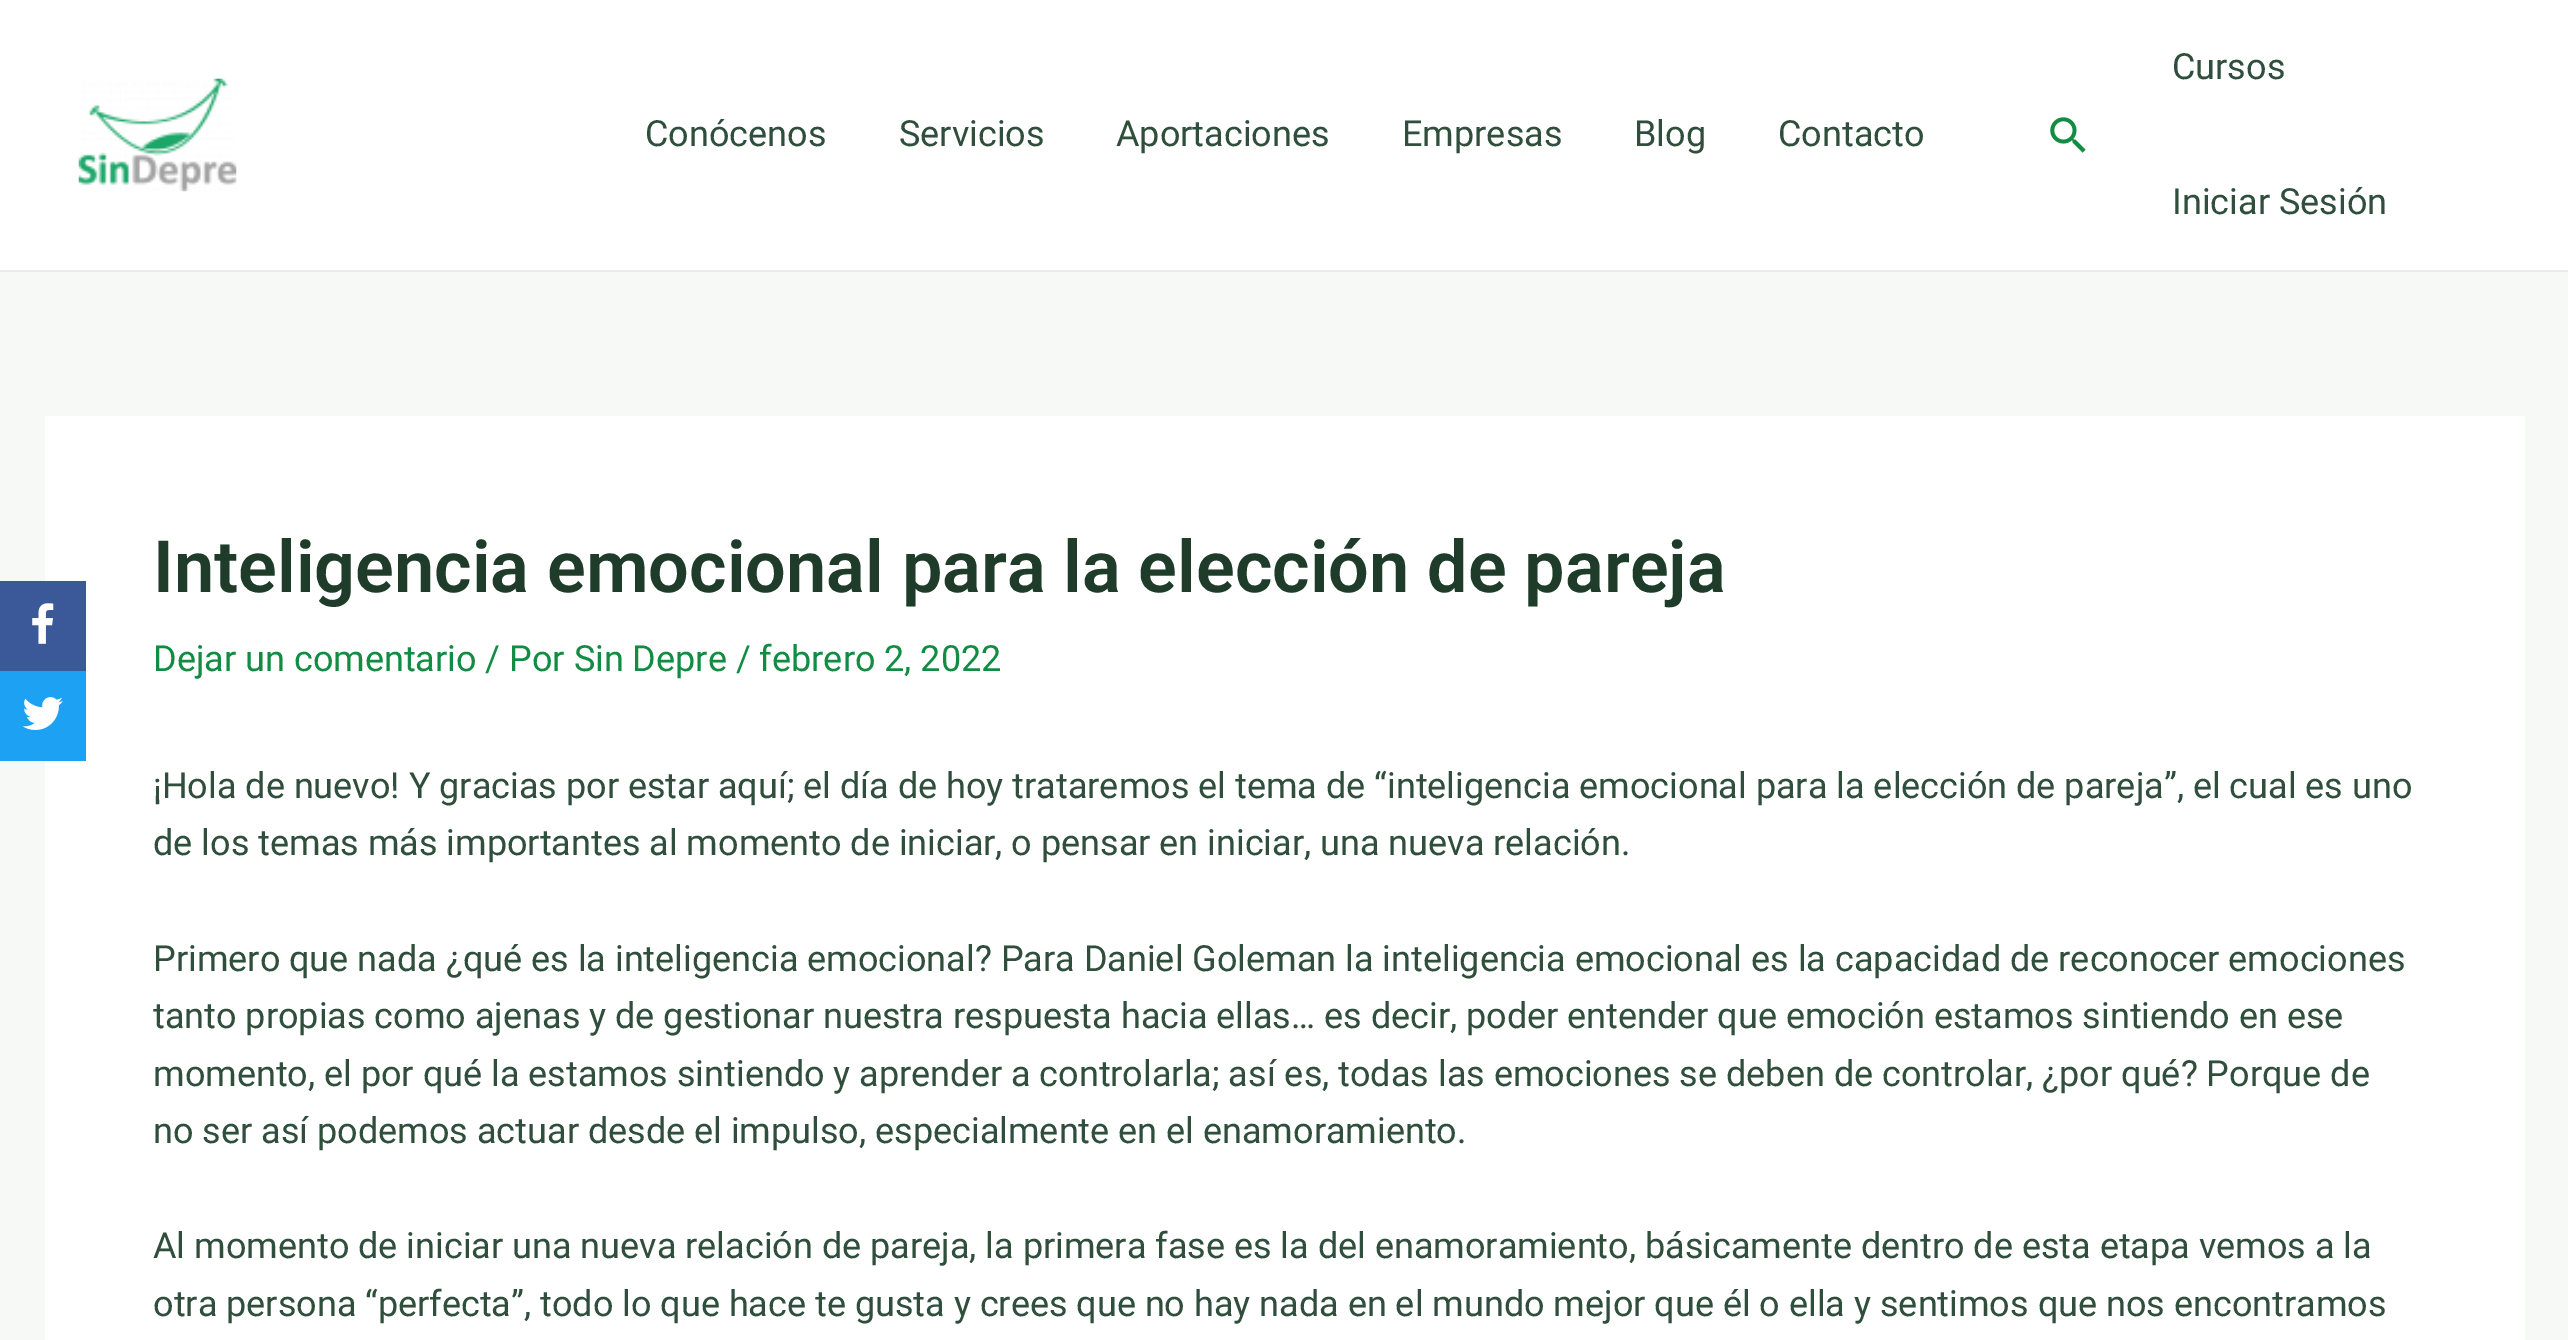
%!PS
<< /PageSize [2568 1340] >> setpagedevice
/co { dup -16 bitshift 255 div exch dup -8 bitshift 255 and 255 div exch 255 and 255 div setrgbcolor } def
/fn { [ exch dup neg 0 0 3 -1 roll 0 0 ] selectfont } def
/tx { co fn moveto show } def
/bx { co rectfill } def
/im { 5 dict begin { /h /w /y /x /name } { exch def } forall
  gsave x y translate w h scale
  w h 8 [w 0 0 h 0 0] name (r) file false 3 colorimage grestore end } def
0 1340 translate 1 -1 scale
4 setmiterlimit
0 0 2568 1340 16#F7F9F7 bx
45 416 2480 924 16#FFFFFF bx
0 581 86 90 16#3B5998 bx
(media/1.raw) 32 603 22 41 im
0 671 86 90 16#1DA1F2 bx
(media/2.raw) 22 697 41 33 im
0 0 2568 270 16#FFFFFF bx
0 270 2568 2 16#EAEAEA bx
(media/3.raw) 78 78 159 114 im
(media/4.raw) 2050 117 36 36 im
(Conócenos) 645 146 /Roboto-Regular 36 16#2F4E3B tx
(Servicios) 899 146 /Roboto-Regular 36 16#2F4E3B tx
(Aportaciones) 1116 146 /Roboto-Regular 36 16#2F4E3B tx
(Empresas) 1402 146 /Roboto-Regular 36 16#2F4E3B tx
(Blog) 1634 146 /Roboto-Regular 36 16#2F4E3B tx
(Contacto) 1778 146 /Roboto-Regular 36 16#2F4E3B tx
(Cursos) 2172 79 /Roboto-Regular 36 16#2F4E3B tx
(Iniciar Sesión) 2172 214 /Roboto-Regular 36 16#2F4E3B tx
(Inteligencia emocional para la elección de pareja) 153 592 /Roboto-SemiBold 72 16#1F3C2B tx
(Dejar un comentario / Por Sin Depre / febrero 2, 2022) 153 671 /Roboto-Regular 36 16#118C42 tx
(¡Hola de nuevo! Y gracias por estar aquí; el día de hoy trataremos el tema de “inteligencia emocional para la elección de pareja”, el cual es uno) 153 798 /Roboto-Regular 36 16#2F4E3B tx
(de los temas más importantes al momento de iniciar, o pensar en iniciar, una nueva relación.) 153 855 /Roboto-Regular 36 16#2F4E3B tx
(Primero que nada ¿qué es la inteligencia emocional? Para Daniel Goleman la inteligencia emocional es la capacidad de reconocer emociones) 153 971 /Roboto-Regular 36 16#2F4E3B tx
(tanto propias como ajenas y de gestionar nuestra respuesta hacia ellas… es decir, poder entender que emoción estamos sintiendo en ese) 153 1028 /Roboto-Regular 36 16#2F4E3B tx
(momento, el por qué la estamos sintiendo y aprender a controlarla; así es, todas las emociones se deben de controlar, ¿por qué? Porque de) 153 1086 /Roboto-Regular 36 16#2F4E3B tx
(no ser así podemos actuar desde el impulso, especialmente en el enamoramiento.) 153 1143 /Roboto-Regular 36 16#2F4E3B tx
(Al momento de iniciar una nueva relación de pareja, la primera fase es la del enamoramiento, básicamente dentro de esta etapa vemos a la) 153 1258 /Roboto-Regular 36 16#2F4E3B tx
(otra persona “perfecta”, todo lo que hace te gusta y crees que no hay nada en el mundo mejor que él o ella y sentimos que nos encontramos) 153 1316 /Roboto-Regular 36 16#2F4E3B tx
showpage
